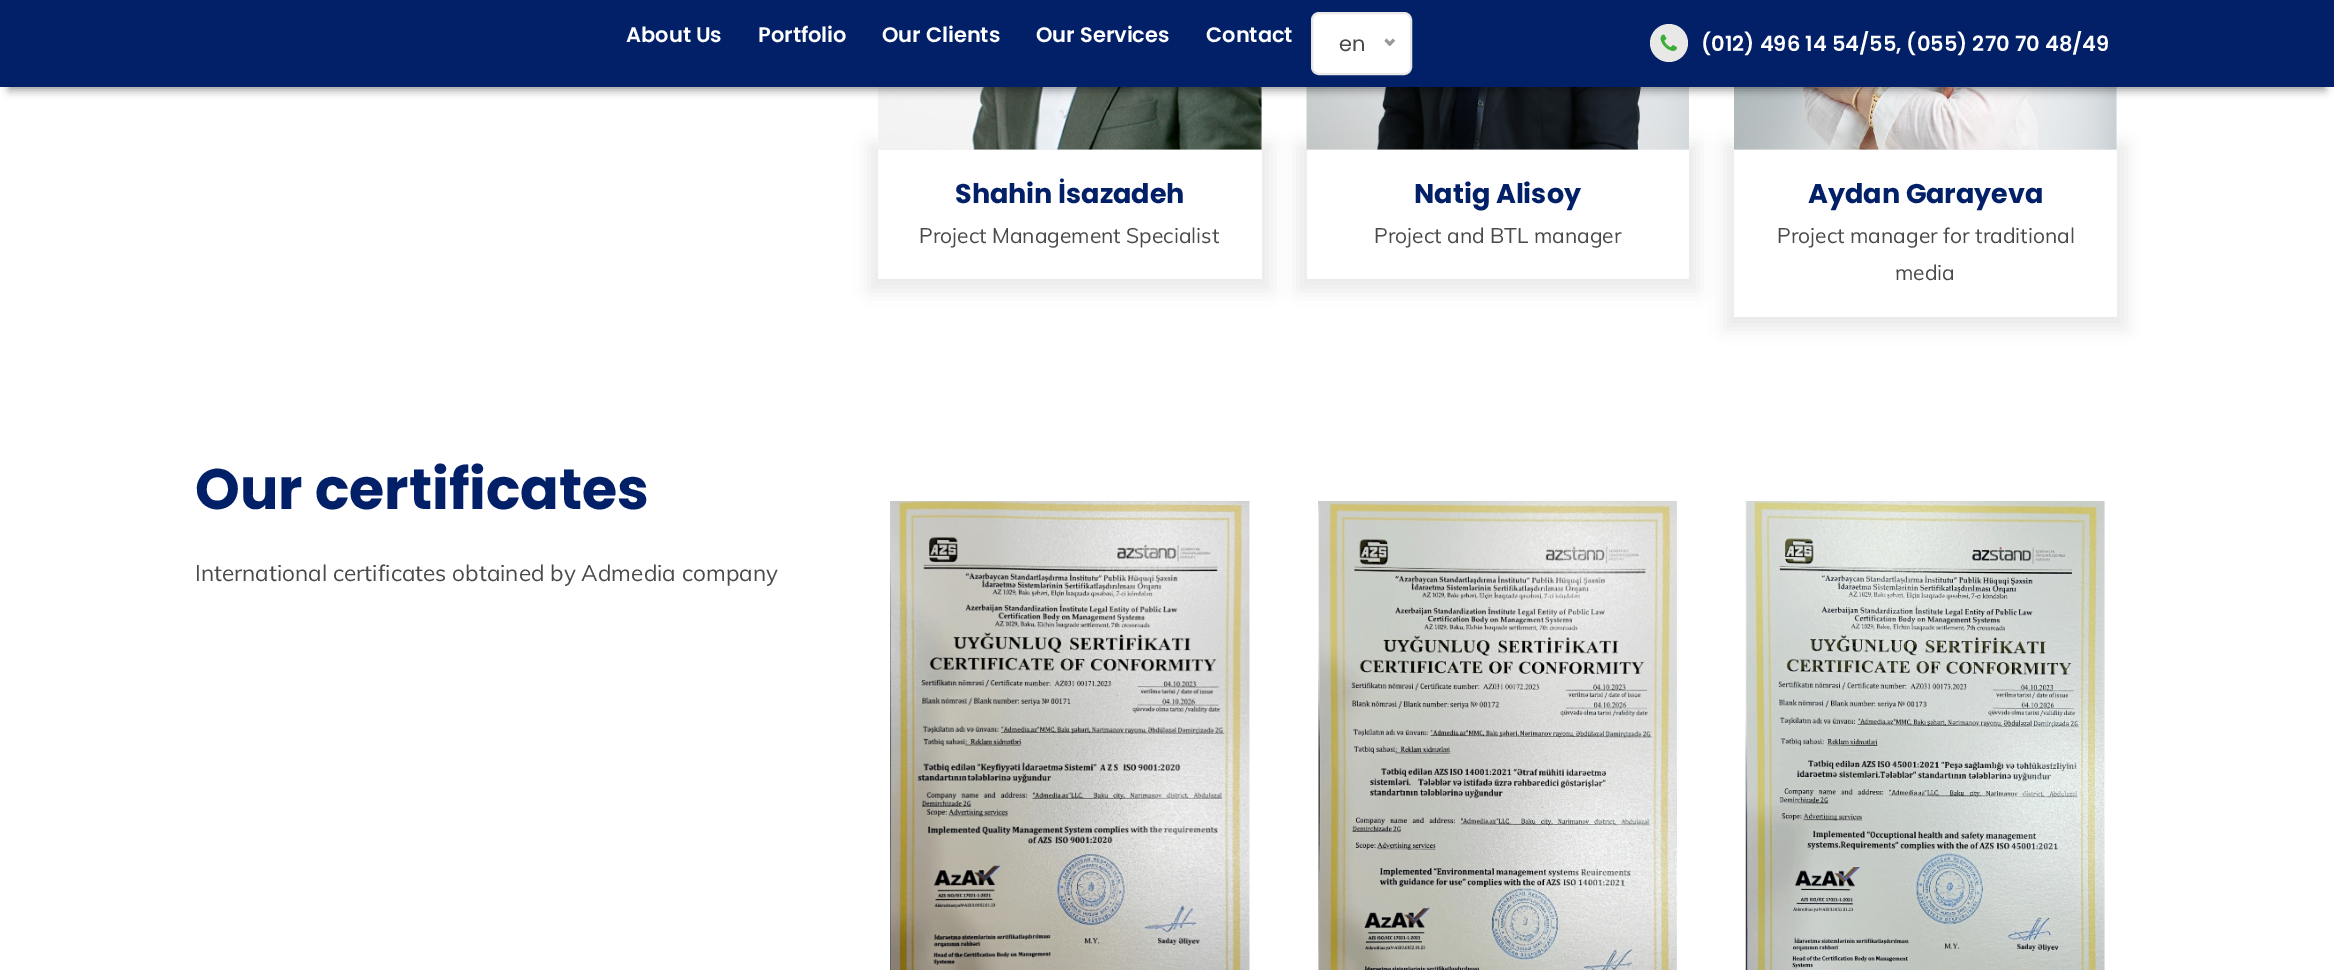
%!PS
<< /PageSize [2334 970] /PageUsesTransparency true >> setpagedevice
/mt/moveto load def
/li/lineto load def
/cp/closepath load def
/fl/fill load def
/st/stroke load def
/gs/gsave load def
/gr/grestore load def
/lw/setlinewidth load def
/co { dup -16 bitshift 255 div exch dup -8 bitshift 255 and 255 div exch 255 and 255 div setrgbcolor } def
/fn { [ exch dup neg 0 0 3 -1 roll 0 0 ] selectfont } def
/tx { co fn moveto show } def
/bx { co rectfill } def
/al { dup .setfillconstantalpha .setstrokeconstantalpha } def
/ci { newpath 0 360 arc closepath } def
/rr { 5 dict begin { /r /h /w /y /x } { exch def } forall
  x r add y moveto x w add y 2 copy h add r arct x w add y h add x 1 index r arct
  x y h add x y r arct x y 2 copy exch w add exch r arct closepath end } def
/sh { 12 dict begin { /a /b /q /h /w /y /x } { exch def } forall gsave /was 0 def
  9 -2 -9 { dup b mul 4 div /e exch def 1 sub .425 mul 2.718 exch exp 1 add a .99 .min exch div /now exch def
    1 1 now sub 1 was sub div sub al /was now def
    w h .min e 2 mul add 0 gt { x e sub y e sub w e 2 mul add h e 2 mul add
      q e add b .6 mul add w h .min 2 div e add .min 0 .max rr fill } if } for grestore end } def
/im { 5 dict begin { /h /w /y /x /name } { exch def } forall
  gsave x y translate w h scale
  w h 8 [w 0 0 h 0 0] name (r) file false 3 colorimage grestore end } def
0 .pushpdf14devicefilter
0 970 translate 1 -1 scale
4 setmiterlimit
0 0 2334 970 16#FFFFFF bx
16#000000 co
869 144 402 147 0 8 .08 sh
(media/2.raw) 878 87 384 63 im
gs
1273 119 mt 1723 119 li 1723 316 li 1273 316 li cp 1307 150 mt 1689 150 li 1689 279 li 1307 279 li cp eoclip newpath
1298 144 400 147 0 8 .08 sh
gr
(media/3.raw) 1306 87 383 63 im
1725 144 401 185 0 8 .08 sh
(media/4.raw) 1734 87 383 63 im
9 21 2316 69 0 4.5 .4 sh
0 0 2334 87 16#012068 bx
16#FFFFFF co
1312 13 99 61 7 rr gs fl gr
16#E8E8E8 co
2 lw
st
16#999999 co
1393 38.5 mt 1395 41 li 1389.5 46 li 1387.5 44 li cp fl
1386.5 38.5 mt 1392 44 li 1389.5 46 li 1384.5 41 li cp fl
16#E8E8E7 co
1669 43 19 ci fl
(media/1.raw) 1660 34 17 17 im
878 150 384 129 16#FFFFFF bx
1734 150 383 167 16#FFFFFF bx
(media/5.raw) 890 501 360 469 im
(media/6.raw) 1318 501 359 469 im
(media/7.raw) 1745 501 360 469 im
(About Us) 626 42 /Poppins-SemiBold 21 16#FFFFFF tx
(Portfolio) 758 42 /Poppins-SemiBold 21 16#FFFFFF tx
(Our Clients) 882 42 /Poppins-SemiBold 21 16#FFFFFF tx
(Our Services) 1036 42 /Poppins-SemiBold 21 16#FFFFFF tx
(Contact) 1206 42 /Poppins-SemiBold 21 16#FFFFFF tx
(en) 1339 51 /Poppins-Regular 21 16#4A4A4A tx
(\(012\) 496 14 54/55, \(055\) 270 70 48/49) 1701 51 /Poppins-SemiBold 21 16#FFFFFF tx
(Shahin İsazadeh) 955 203 /Poppins-Bold 27 16#012068 tx
(Project Management Specialist) 919 243 /Muli-Regular 21 16#4A4A4A tx
(Natig Alisoy) 1414 203 /Poppins-Bold 27 16#012068 tx
(Project and BTL manager) 1374 243 /Muli-Regular 21 16#4A4A4A tx
(Aydan Garayeva) 1808 203 /Poppins-Bold 27 16#012068 tx
(Project manager for traditional) 1777 243 /Muli-Regular 21 16#4A4A4A tx
(media) 1895 280 /Muli-Regular 21 16#4A4A4A tx
(Our certificates) 195 509 /Poppins-Bold 57 16#012068 tx
(International certificates obtained by Admedia company) 195 581 /Muli-Regular 22.5 16#4A4A4A tx
.poppdf14devicefilter showpage
